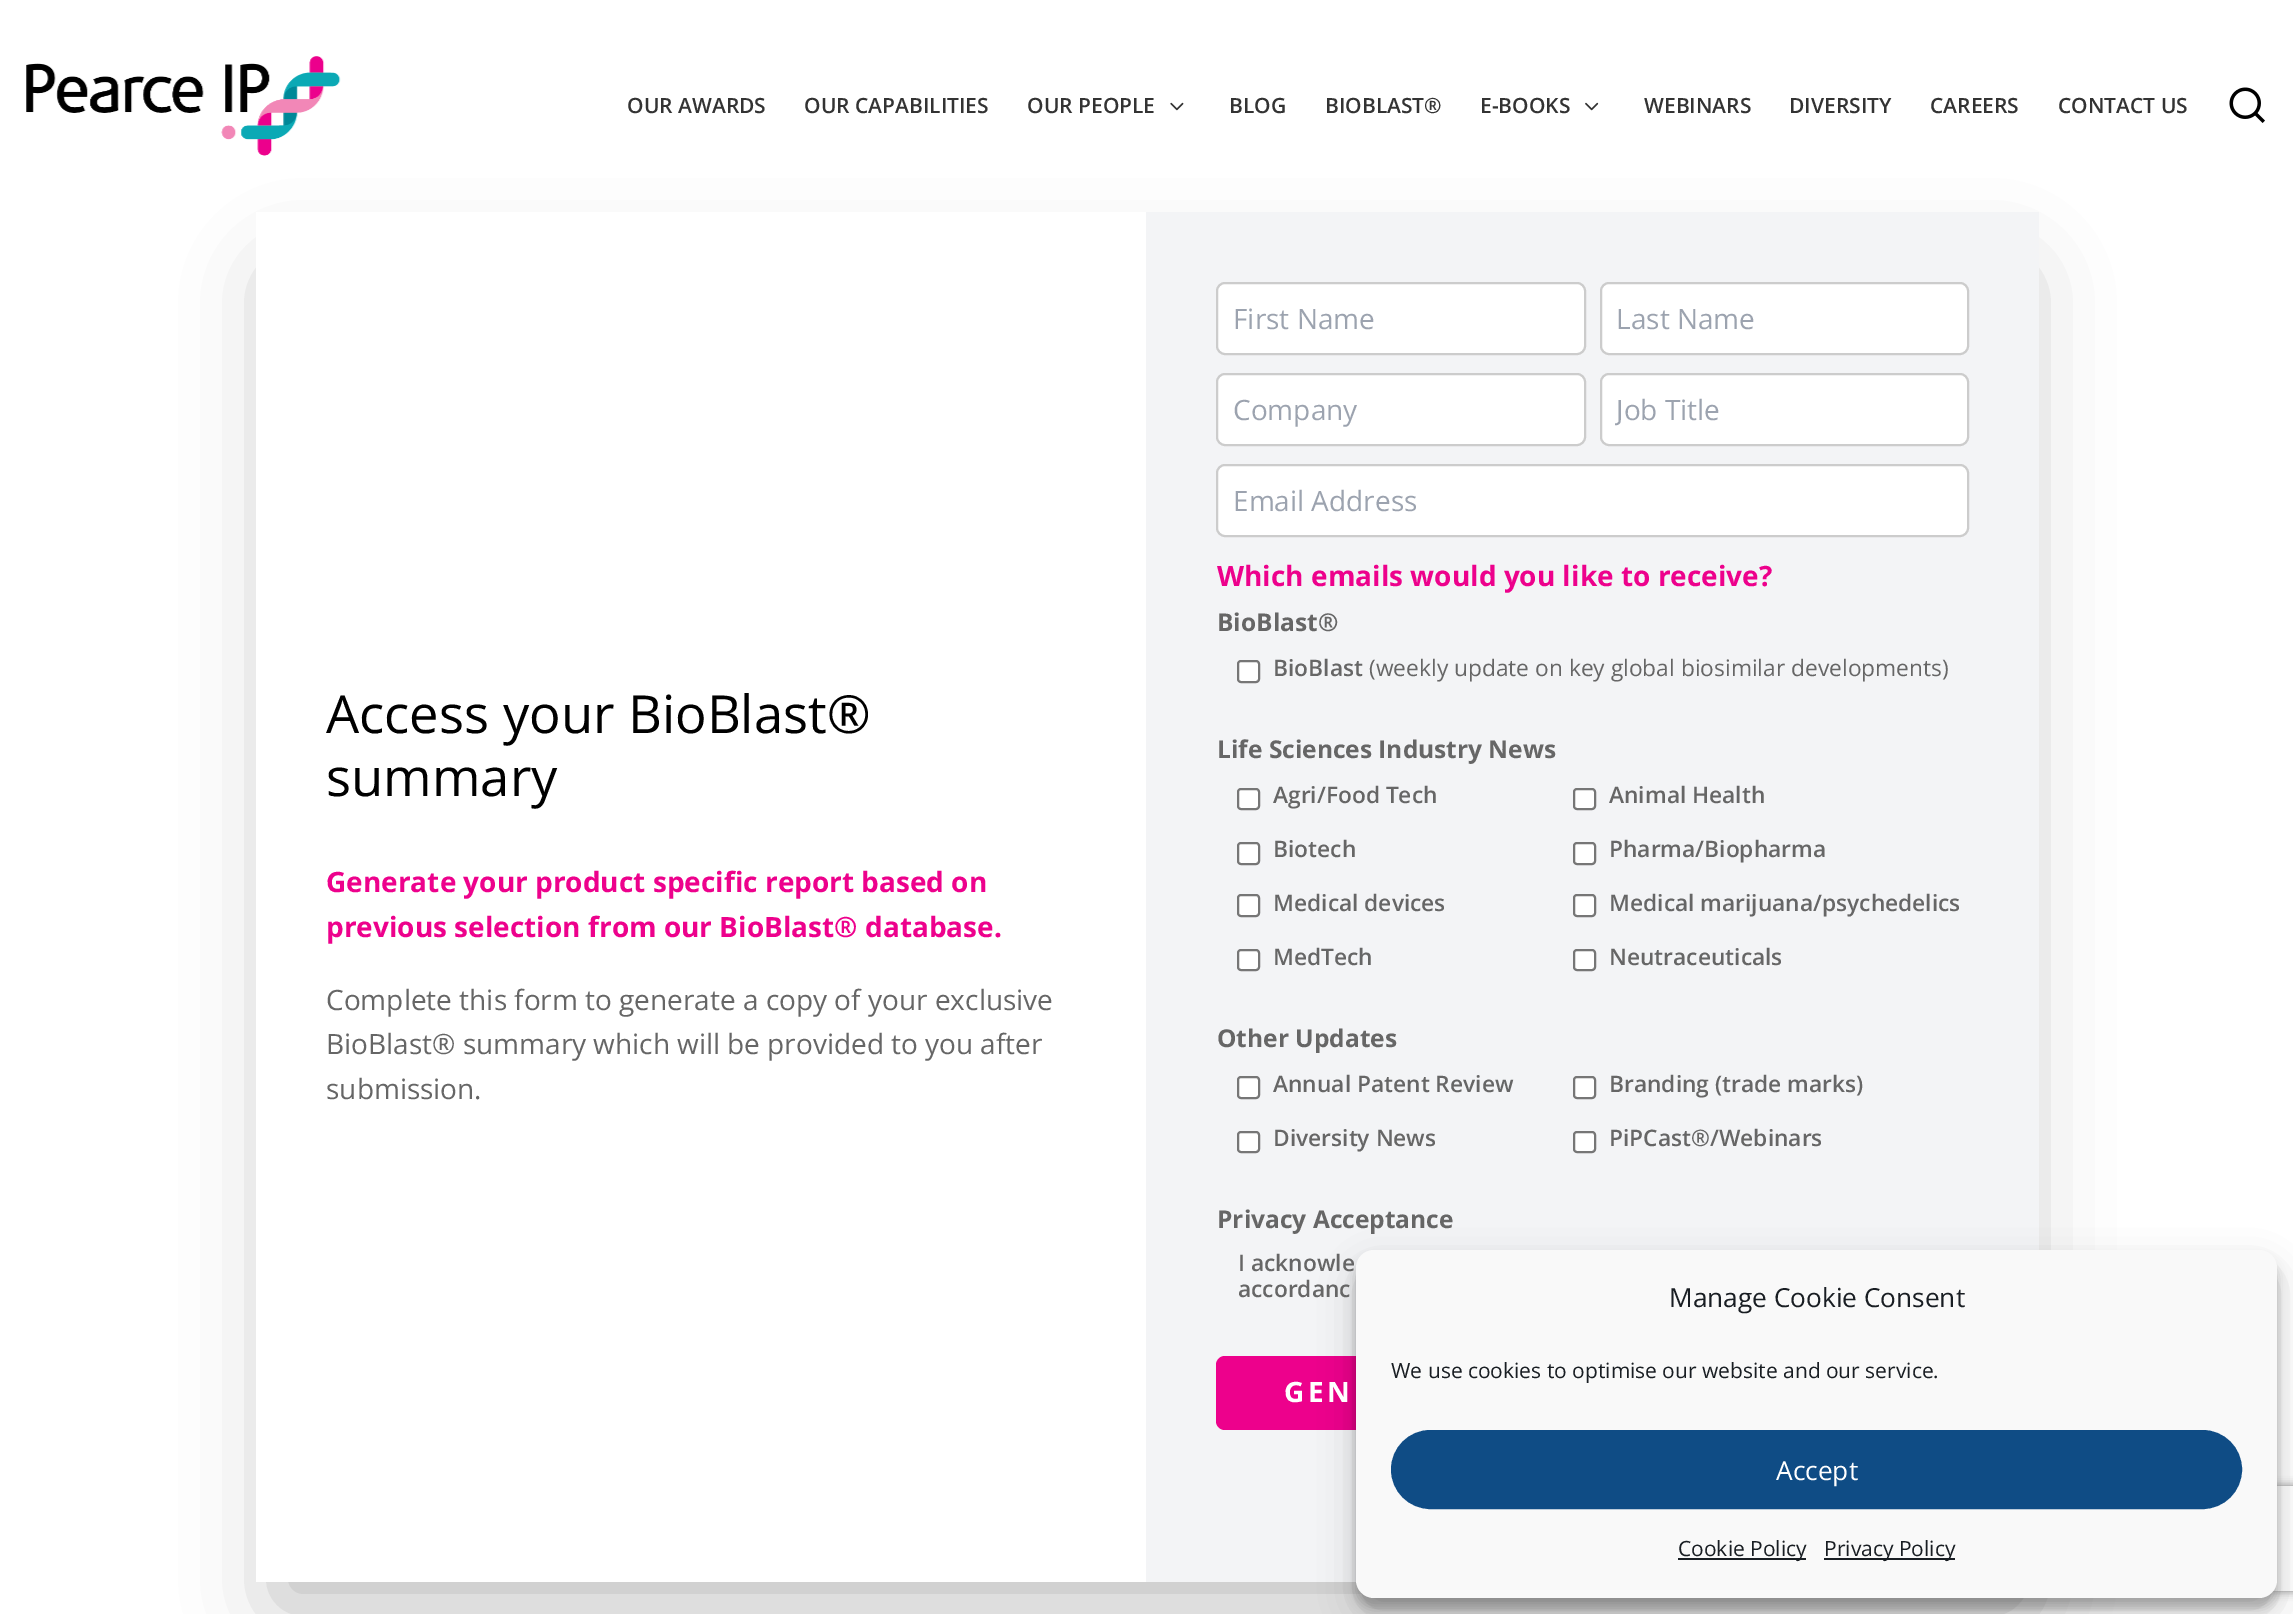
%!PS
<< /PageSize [2293 1614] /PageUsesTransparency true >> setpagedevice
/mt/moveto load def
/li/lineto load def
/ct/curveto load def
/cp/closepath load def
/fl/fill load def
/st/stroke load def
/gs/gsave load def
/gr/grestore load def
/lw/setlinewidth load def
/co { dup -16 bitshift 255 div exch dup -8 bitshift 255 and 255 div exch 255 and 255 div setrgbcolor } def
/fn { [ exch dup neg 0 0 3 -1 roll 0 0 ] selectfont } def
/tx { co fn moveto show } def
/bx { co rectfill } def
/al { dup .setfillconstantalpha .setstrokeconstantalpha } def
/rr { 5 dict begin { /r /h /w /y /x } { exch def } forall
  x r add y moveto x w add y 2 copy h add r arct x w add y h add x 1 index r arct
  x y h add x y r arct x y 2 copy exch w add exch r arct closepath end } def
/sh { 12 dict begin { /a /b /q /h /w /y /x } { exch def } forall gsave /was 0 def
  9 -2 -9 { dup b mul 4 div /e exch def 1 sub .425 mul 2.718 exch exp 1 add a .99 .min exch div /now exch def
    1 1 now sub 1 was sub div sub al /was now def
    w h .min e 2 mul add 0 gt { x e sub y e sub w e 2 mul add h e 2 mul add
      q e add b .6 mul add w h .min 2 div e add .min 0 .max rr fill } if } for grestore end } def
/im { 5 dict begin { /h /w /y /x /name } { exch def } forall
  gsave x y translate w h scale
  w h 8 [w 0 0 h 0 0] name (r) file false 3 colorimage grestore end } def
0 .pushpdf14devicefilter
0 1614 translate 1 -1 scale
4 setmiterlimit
0 0 2293 1614 16#FFFFFF bx
(media/1.raw) 26 56 315 100 im
(media/2.raw) 1170 102 14 9 im
(media/3.raw) 1585 102 14 9 im
(media/4.raw) 2229 87 36 36 im
gs
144 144 mt 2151 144 li 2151 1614 li 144 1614 li cp 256 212 mt 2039 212 li 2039 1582 li 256 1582 li cp eoclip newpath
16#000000 co
277 277 1741 1328 0 44 .25 sh
gr
1146 212 893 1370 16#F3F4F6 bx
16#FFFFFF co
1217 283 368 71 8 rr gs fl gr
16#CCCCCC co
2 lw
st
16#FFFFFF co
1601 283 367 71 8 rr gs fl gr
16#CCCCCC co
st
16#FFFFFF co
1217 374 368 71 8 rr gs fl gr
16#CCCCCC co
st
16#FFFFFF co
1601 374 367 71 8 rr gs fl gr
16#CCCCCC co
st
16#FFFFFF co
1217 465 751 71 8 rr gs fl gr
16#CCCCCC co
st
16#FFFFFF co
1238 661 21 21 3 rr gs fl gr
16#767676 co
st
16#FFFFFF co
1238 789 21 20 3 rr gs fl gr
16#767676 co
st
16#FFFFFF co
1574 789 21 20 3 rr gs fl gr
16#767676 co
st
16#FFFFFF co
1238 843 21 21 3 rr gs fl gr
16#767676 co
st
16#FFFFFF co
1574 843 21 21 3 rr gs fl gr
16#767676 co
st
16#FFFFFF co
1238 895 21 21 3 rr gs fl gr
16#767676 co
st
16#FFFFFF co
1574 895 21 21 3 rr gs fl gr
16#767676 co
st
16#FFFFFF co
1238 950 21 20 3 rr gs fl gr
16#767676 co
st
16#FFFFFF co
1574 950 21 20 3 rr gs fl gr
16#767676 co
st
16#FFFFFF co
1238 1077 21 21 3 rr gs fl gr
16#767676 co
st
16#FFFFFF co
1574 1077 21 21 3 rr gs fl gr
16#767676 co
st
16#FFFFFF co
1238 1132 21 20 3 rr gs fl gr
16#767676 co
st
16#FFFFFF co
1574 1132 21 20 3 rr gs fl gr
16#767676 co
st
16#ED018C co
1216 1356 753 74 9 rr fl
16#000000 co
1356 1260 921 348 18 5 .23 sh
1356 1267 921 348 18 17.5 .19 sh
gs
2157 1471 mt 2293 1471 li 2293 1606 li 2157 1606 li cp 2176 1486 mt 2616 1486 li 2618 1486 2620 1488 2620 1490 ct 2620 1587 li 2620 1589 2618 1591 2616 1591 ct 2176 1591 li 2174 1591 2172 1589 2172 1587 ct 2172 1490 li 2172 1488 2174 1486 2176 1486 ct cp eoclip newpath
16#808080 co
2172 1486 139 105 4 4.5 1 sh
gr
16#F9F9F9 co
1356 1250 921 348 18 rr fl
16#0F4C85 co
1392 1431 849 77 38.5 rr gs fl gr
st
1678 1558 128 2 16#191E23 bx
1824 1558 131 2 16#191E23 bx
(OUR AWARDS) 627 113 /OpenSans-SemiBold 21 16#333333 tx
(OUR CAPABILITIES) 804 113 /OpenSans-SemiBold 21 16#333333 tx
(OUR PEOPLE) 1027 113 /OpenSans-SemiBold 21 16#333333 tx
(BLOG) 1229 113 /OpenSans-SemiBold 21 16#333333 tx
(BIOBLAST®) 1325 113 /OpenSans-SemiBold 21 16#333333 tx
(E-BOOKS) 1480 113 /OpenSans-SemiBold 21 16#333333 tx
(WEBINARS) 1644 113 /OpenSans-SemiBold 21 16#333333 tx
(DIVERSITY) 1789 113 /OpenSans-SemiBold 21 16#333333 tx
(CAREERS) 1930 113 /OpenSans-SemiBold 21 16#333333 tx
(CONTACT US) 2058 113 /OpenSans-SemiBold 21 16#333333 tx
(Access your BioBlast®) 326 733 /OpenSans-Regular 52.5 16#000000 tx
(summary) 326 796 /OpenSans-Regular 52.5 16#000000 tx
(Generate your product specific report based on) 326 892 /OpenSans-Bold 28 16#ED018C tx
(previous selection from our BioBlast® database.) 326 937 /OpenSans-Bold 28 16#ED018C tx
(Complete this form to generate a copy of your exclusive) 326 1010 /OpenSans-Regular 28 16#666666 tx
(BioBlast® summary which will be provided to you after) 326 1054 /OpenSans-Regular 28 16#666666 tx
(submission.) 326 1099 /OpenSans-Regular 28 16#666666 tx
(First Name) 1233 329 /OpenSans-Regular 28 16#9CA3AF tx
(Last Name) 1616 329 /OpenSans-Regular 28 16#9CA3AF tx
(Company) 1233 420 /OpenSans-Regular 28 16#9CA3AF tx
gs
1615 390 338 39 rectclip
(Job Title) 1616 420 /OpenSans-Regular 28 16#9CA3AF tx
gr
(Email Address) 1233 511 /OpenSans-Regular 28 16#9CA3AF tx
(Which emails would you like to receive?) 1217 586 /OpenSans-Bold 28 16#ED018C tx
(BioBlast®) 1217 631 /OpenSans-Bold 24.5 16#666666 tx
(BioBlast) 1273 676 /OpenSans-SemiBold 22.75 16#666666 tx
(\(weekly update on key global biosimilar developments\)) 1369 676 /OpenSans-Regular 22.75 16#666666 tx
(Life Sciences Industry News) 1217 758 /OpenSans-Bold 24.5 16#666666 tx
(Agri/Food Tech) 1273 803 /OpenSans-SemiBold 22.75 16#666666 tx
(Animal Health) 1609 803 /OpenSans-SemiBold 22.75 16#666666 tx
(Biotech) 1273 857 /OpenSans-SemiBold 22.75 16#666666 tx
(Pharma/Biopharma) 1609 857 /OpenSans-SemiBold 22.75 16#666666 tx
(Medical devices) 1273 911 /OpenSans-SemiBold 22.75 16#666666 tx
(Medical marijuana/psychedelics) 1609 911 /OpenSans-SemiBold 22.75 16#666666 tx
(MedTech) 1273 965 /OpenSans-SemiBold 22.75 16#666666 tx
(Neutraceuticals) 1609 965 /OpenSans-SemiBold 22.75 16#666666 tx
(Other Updates) 1217 1047 /OpenSans-Bold 24.5 16#666666 tx
(Annual Patent Review) 1273 1092 /OpenSans-SemiBold 22.75 16#666666 tx
(Branding \(trade marks\)) 1609 1092 /OpenSans-SemiBold 22.75 16#666666 tx
(Diversity News) 1273 1146 /OpenSans-SemiBold 22.75 16#666666 tx
(PiPCast®/Webinars) 1609 1146 /OpenSans-SemiBold 22.75 16#666666 tx
(Privacy Acceptance) 1217 1228 /OpenSans-Bold 24.5 16#666666 tx
(I acknowle) 1238 1271 /OpenSans-SemiBold 22.75 16#666666 tx
(accordanc) 1238 1297 /OpenSans-SemiBold 22.75 16#666666 tx
/OpenSans-Bold 28 fn
16#FFFFFF co
1284 1402 mt 3.5 0 (GEN) ashow
(Manage Cookie Consent) 1669 1307 /OpenSans-Regular 26.25 16#191E23 tx
(We use cookies to optimise our website and our service.) 1391 1378 /OpenSans-Regular 21 16#191E23 tx
(Accept) 1776 1480 /OpenSans-Regular 26.25 16#FFFFFF tx
(Cookie Policy) 1678 1556 /OpenSans-Regular 21 16#191E23 tx
(Privacy Policy) 1824 1556 /OpenSans-Regular 21 16#191E23 tx
.poppdf14devicefilter showpage
